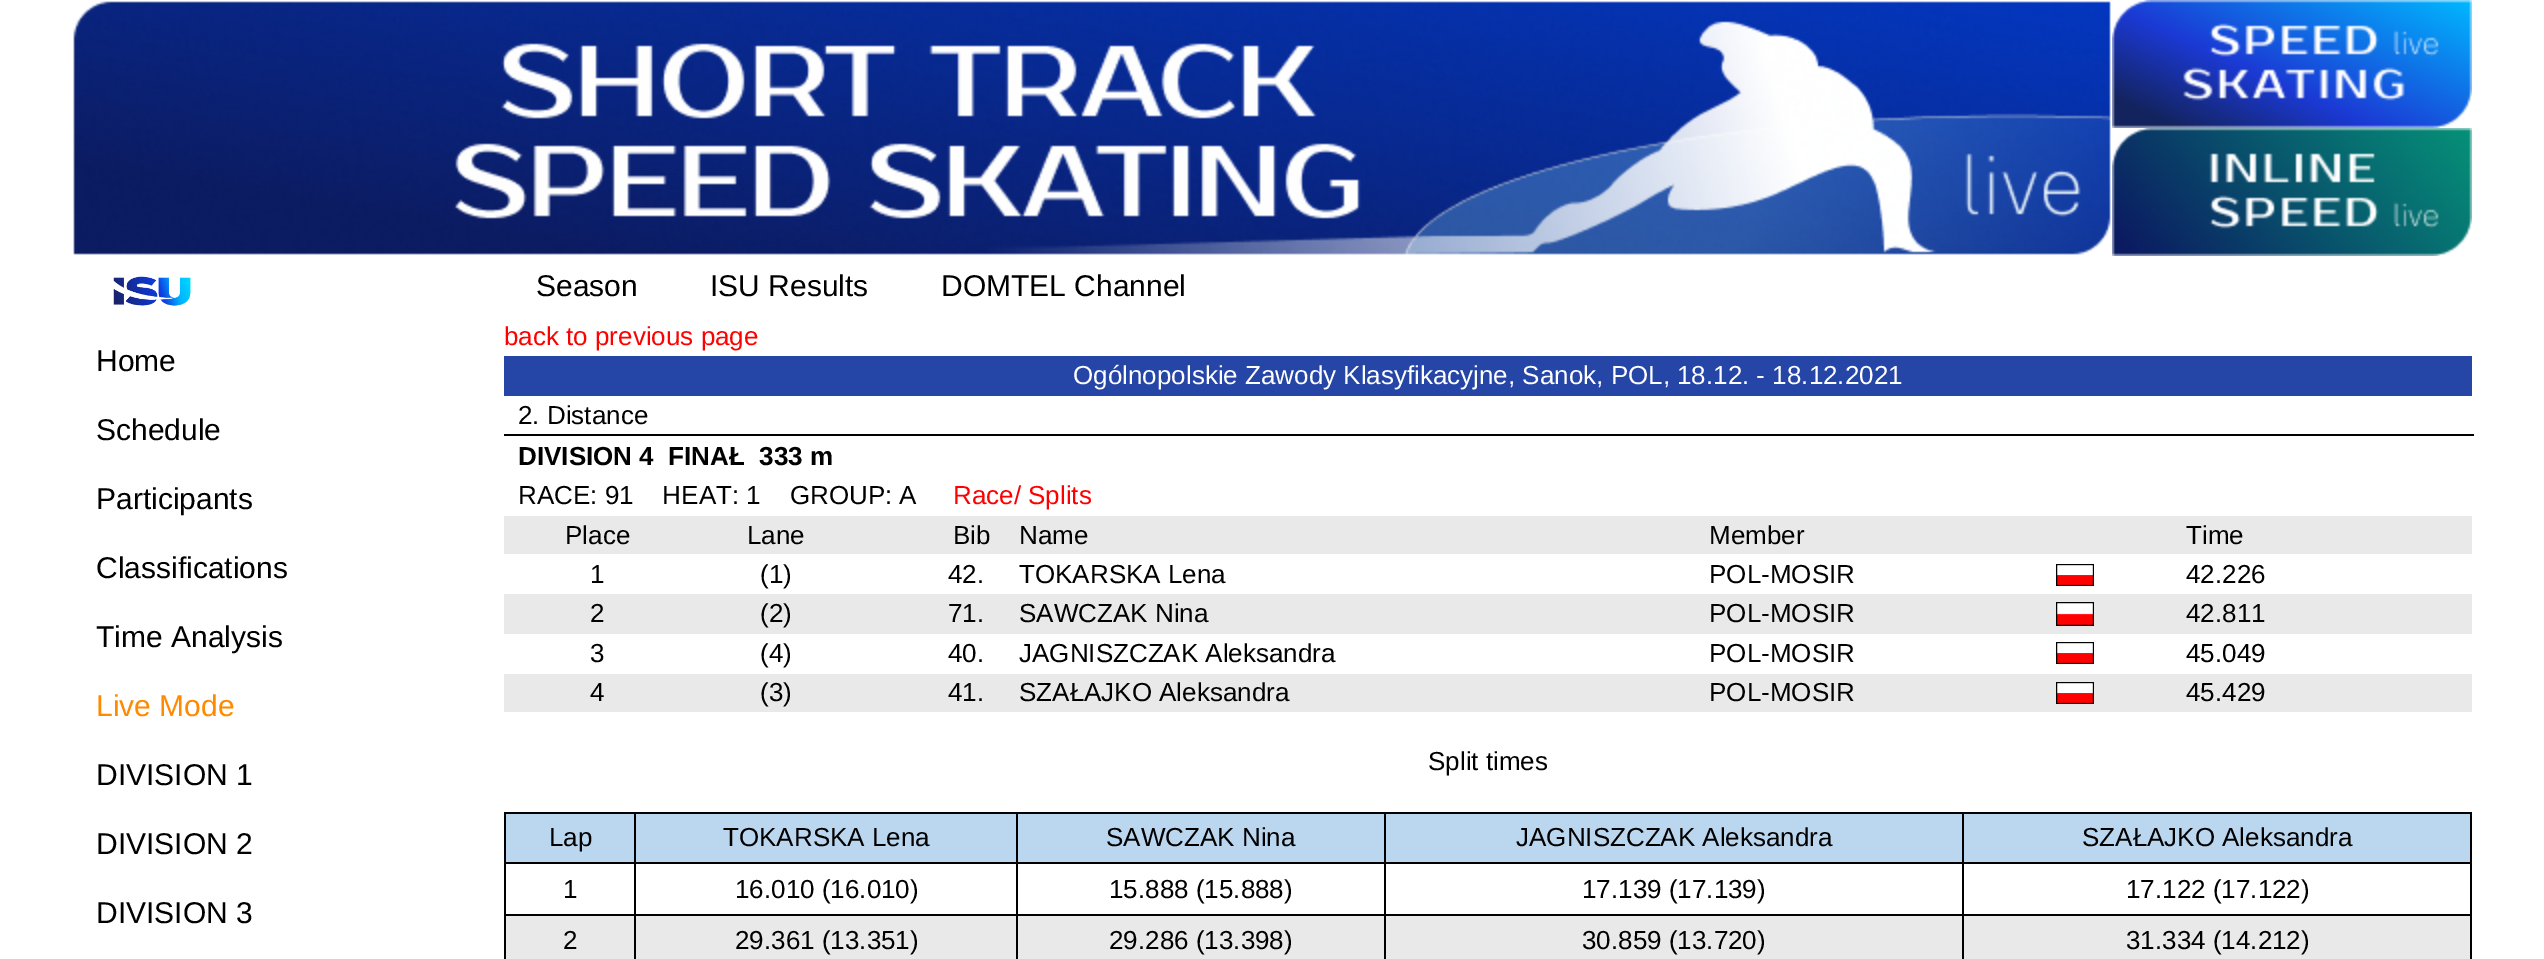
%!PS
<< /PageSize [2544 959] >> setpagedevice
/co { dup -16 bitshift 255 div exch dup -8 bitshift 255 and 255 div exch 255 and 255 div setrgbcolor } def
/fn { [ exch dup neg 0 0 3 -1 roll 0 0 ] selectfont } def
/tx { co fn moveto show } def
/bx { co rectfill } def
/im { 5 dict begin { /h /w /y /x /name } { exch def } forall
  gsave x y translate w h scale
  w h 8 [w 0 0 h 0 0] name (r) file false 3 colorimage grestore end } def
0 959 translate 1 -1 scale
4 setmiterlimit
0 0 2544 959 16#FFFFFF bx
(media/1.raw) 73 1 2038 254 im
(media/2.raw) 2112 0 360 128 im
(media/3.raw) 2112 128 360 128 im
(media/4.raw) 113 276 78 30 im
504 356 1968 40 16#2646A7 bx
504 434 1970 2 16#000000 bx
504 516 1968 38 16#E9E9E9 bx
(media/5.raw) 2056 564 38 22 im
504 594 1968 40 16#E9E9E9 bx
(media/6.raw) 2056 602 38 24 im
(media/5.raw) 2056 642 38 22 im
504 674 1968 38 16#E9E9E9 bx
(media/5.raw) 2056 682 38 22 im
506 814 1964 48 16#BBD7EF bx
1962 812 510 2 16#000000 bx
1962 862 510 2 16#000000 bx
1962 914 510 2 16#000000 bx
506 916 1964 43 16#E9E9E9 bx
1962 914 2 45 16#000000 bx
1384 914 580 2 16#000000 bx
1962 862 2 54 16#000000 bx
1384 862 580 2 16#000000 bx
1962 812 2 52 16#000000 bx
1384 812 580 2 16#000000 bx
1384 914 2 45 16#000000 bx
1016 914 370 2 16#000000 bx
1384 862 2 54 16#000000 bx
1016 862 370 2 16#000000 bx
1384 812 2 52 16#000000 bx
1016 812 370 2 16#000000 bx
1016 914 2 45 16#000000 bx
634 914 384 2 16#000000 bx
1016 862 2 54 16#000000 bx
634 862 384 2 16#000000 bx
1016 812 2 52 16#000000 bx
634 812 384 2 16#000000 bx
634 914 2 45 16#000000 bx
504 914 132 2 16#000000 bx
634 862 2 54 16#000000 bx
504 862 132 2 16#000000 bx
634 812 2 52 16#000000 bx
504 812 132 2 16#000000 bx
504 914 2 45 16#000000 bx
504 862 2 54 16#000000 bx
504 812 2 52 16#000000 bx
2470 914 2 45 16#000000 bx
2470 862 2 54 16#000000 bx
2470 812 2 52 16#000000 bx
(Season) 536 296 /LiberationSans-Regular 30 16#000000 tx
(ISU Results) 710 296 /LiberationSans-Regular 30 16#000000 tx
(DOMTEL Channel) 941 296 /LiberationSans-Regular 30 16#000000 tx
(Home) 96 371 /LiberationSans-Regular 30 16#000000 tx
(Schedule) 96 440 /LiberationSans-Regular 30 16#000000 tx
(Participants) 96 509 /LiberationSans-Regular 30 16#000000 tx
(Classifications) 96 578 /LiberationSans-Regular 30 16#000000 tx
(Time Analysis) 96 647 /LiberationSans-Regular 30 16#000000 tx
(Live Mode) 96 716 /LiberationSans-Regular 30 16#FF8A00 tx
(DIVISION 1) 96 785 /LiberationSans-Regular 30 16#000000 tx
(DIVISION 2) 96 854 /LiberationSans-Regular 30 16#000000 tx
(DIVISION 3) 96 923 /LiberationSans-Regular 30 16#000000 tx
(back to previous page) 504 345 /LiberationSans-Regular 26 16#FF0000 tx
(Ogólnopolskie Zawody Klasyfikacyjne, Sanok, POL, 18.12. - 18.12.2021) 1073 384 /LiberationSans-Regular 26 16#FFFFFF tx
(2. Distance) 518 424 /LiberationSans-Regular 26 16#000000 tx
(DIVISION 4  FINAŁ  333 m) 518 465 /LiberationSans-Bold 26 16#000000 tx
(RACE: 91    HEAT: 1    GROUP: A) 518 504 /LiberationSans-Regular 26 16#000000 tx
(Race/ Splits) 953 504 /LiberationSans-Regular 26 16#FF0000 tx
(Place) 565 544 /LiberationSans-Regular 26 16#000000 tx
(Lane) 747 544 /LiberationSans-Regular 26 16#000000 tx
(Bib) 953 544 /LiberationSans-Regular 26 16#000000 tx
(Name) 1019 544 /LiberationSans-Regular 26 16#000000 tx
(Member) 1709 544 /LiberationSans-Regular 26 16#000000 tx
(Time) 2186 544 /LiberationSans-Regular 26 16#000000 tx
(1) 590 583 /LiberationSans-Regular 26 16#000000 tx
(\(1\)) 760 583 /LiberationSans-Regular 26 16#000000 tx
(42.) 948 583 /LiberationSans-Regular 26 16#000000 tx
(TOKARSKA Lena) 1019 583 /LiberationSans-Regular 26 16#000000 tx
(POL-MOSIR) 1709 583 /LiberationSans-Regular 26 16#000000 tx
(42.226) 2186 583 /LiberationSans-Regular 26 16#000000 tx
(2) 590 622 /LiberationSans-Regular 26 16#000000 tx
(\(2\)) 760 622 /LiberationSans-Regular 26 16#000000 tx
(71.) 948 622 /LiberationSans-Regular 26 16#000000 tx
(SAWCZAK Nina) 1019 622 /LiberationSans-Regular 26 16#000000 tx
(POL-MOSIR) 1709 622 /LiberationSans-Regular 26 16#000000 tx
(42.811) 2186 622 /LiberationSans-Regular 26 16#000000 tx
(3) 590 662 /LiberationSans-Regular 26 16#000000 tx
(\(4\)) 760 662 /LiberationSans-Regular 26 16#000000 tx
(40.) 948 662 /LiberationSans-Regular 26 16#000000 tx
(JAGNISZCZAK Aleksandra) 1019 662 /LiberationSans-Regular 26 16#000000 tx
(POL-MOSIR) 1709 662 /LiberationSans-Regular 26 16#000000 tx
(45.049) 2186 662 /LiberationSans-Regular 26 16#000000 tx
(4) 590 701 /LiberationSans-Regular 26 16#000000 tx
(\(3\)) 760 701 /LiberationSans-Regular 26 16#000000 tx
(41.) 948 701 /LiberationSans-Regular 26 16#000000 tx
(SZAŁAJKO Aleksandra) 1019 701 /LiberationSans-Regular 26 16#000000 tx
(POL-MOSIR) 1709 701 /LiberationSans-Regular 26 16#000000 tx
(45.429) 2186 701 /LiberationSans-Regular 26 16#000000 tx
(Split times) 1428 770 /LiberationSans-Regular 26 16#000000 tx
(Lap) 549 846 /LiberationSans-Regular 26 16#000000 tx
(TOKARSKA Lena) 723 846 /LiberationSans-Regular 26 16#000000 tx
(SAWCZAK Nina) 1106 846 /LiberationSans-Regular 26 16#000000 tx
(JAGNISZCZAK Aleksandra) 1516 846 /LiberationSans-Regular 26 16#000000 tx
(SZAŁAJKO Aleksandra) 2082 846 /LiberationSans-Regular 26 16#000000 tx
(1) 563 898 /LiberationSans-Regular 26 16#000000 tx
(16.010 \(16.010\)) 735 898 /LiberationSans-Regular 26 16#000000 tx
(15.888 \(15.888\)) 1109 898 /LiberationSans-Regular 26 16#000000 tx
(17.139 \(17.139\)) 1582 898 /LiberationSans-Regular 26 16#000000 tx
(17.122 \(17.122\)) 2126 898 /LiberationSans-Regular 26 16#000000 tx
(2) 563 949 /LiberationSans-Regular 26 16#000000 tx
(29.361 \(13.351\)) 735 949 /LiberationSans-Regular 26 16#000000 tx
(29.286 \(13.398\)) 1109 949 /LiberationSans-Regular 26 16#000000 tx
(30.859 \(13.720\)) 1582 949 /LiberationSans-Regular 26 16#000000 tx
(31.334 \(14.212\)) 2126 949 /LiberationSans-Regular 26 16#000000 tx
showpage
